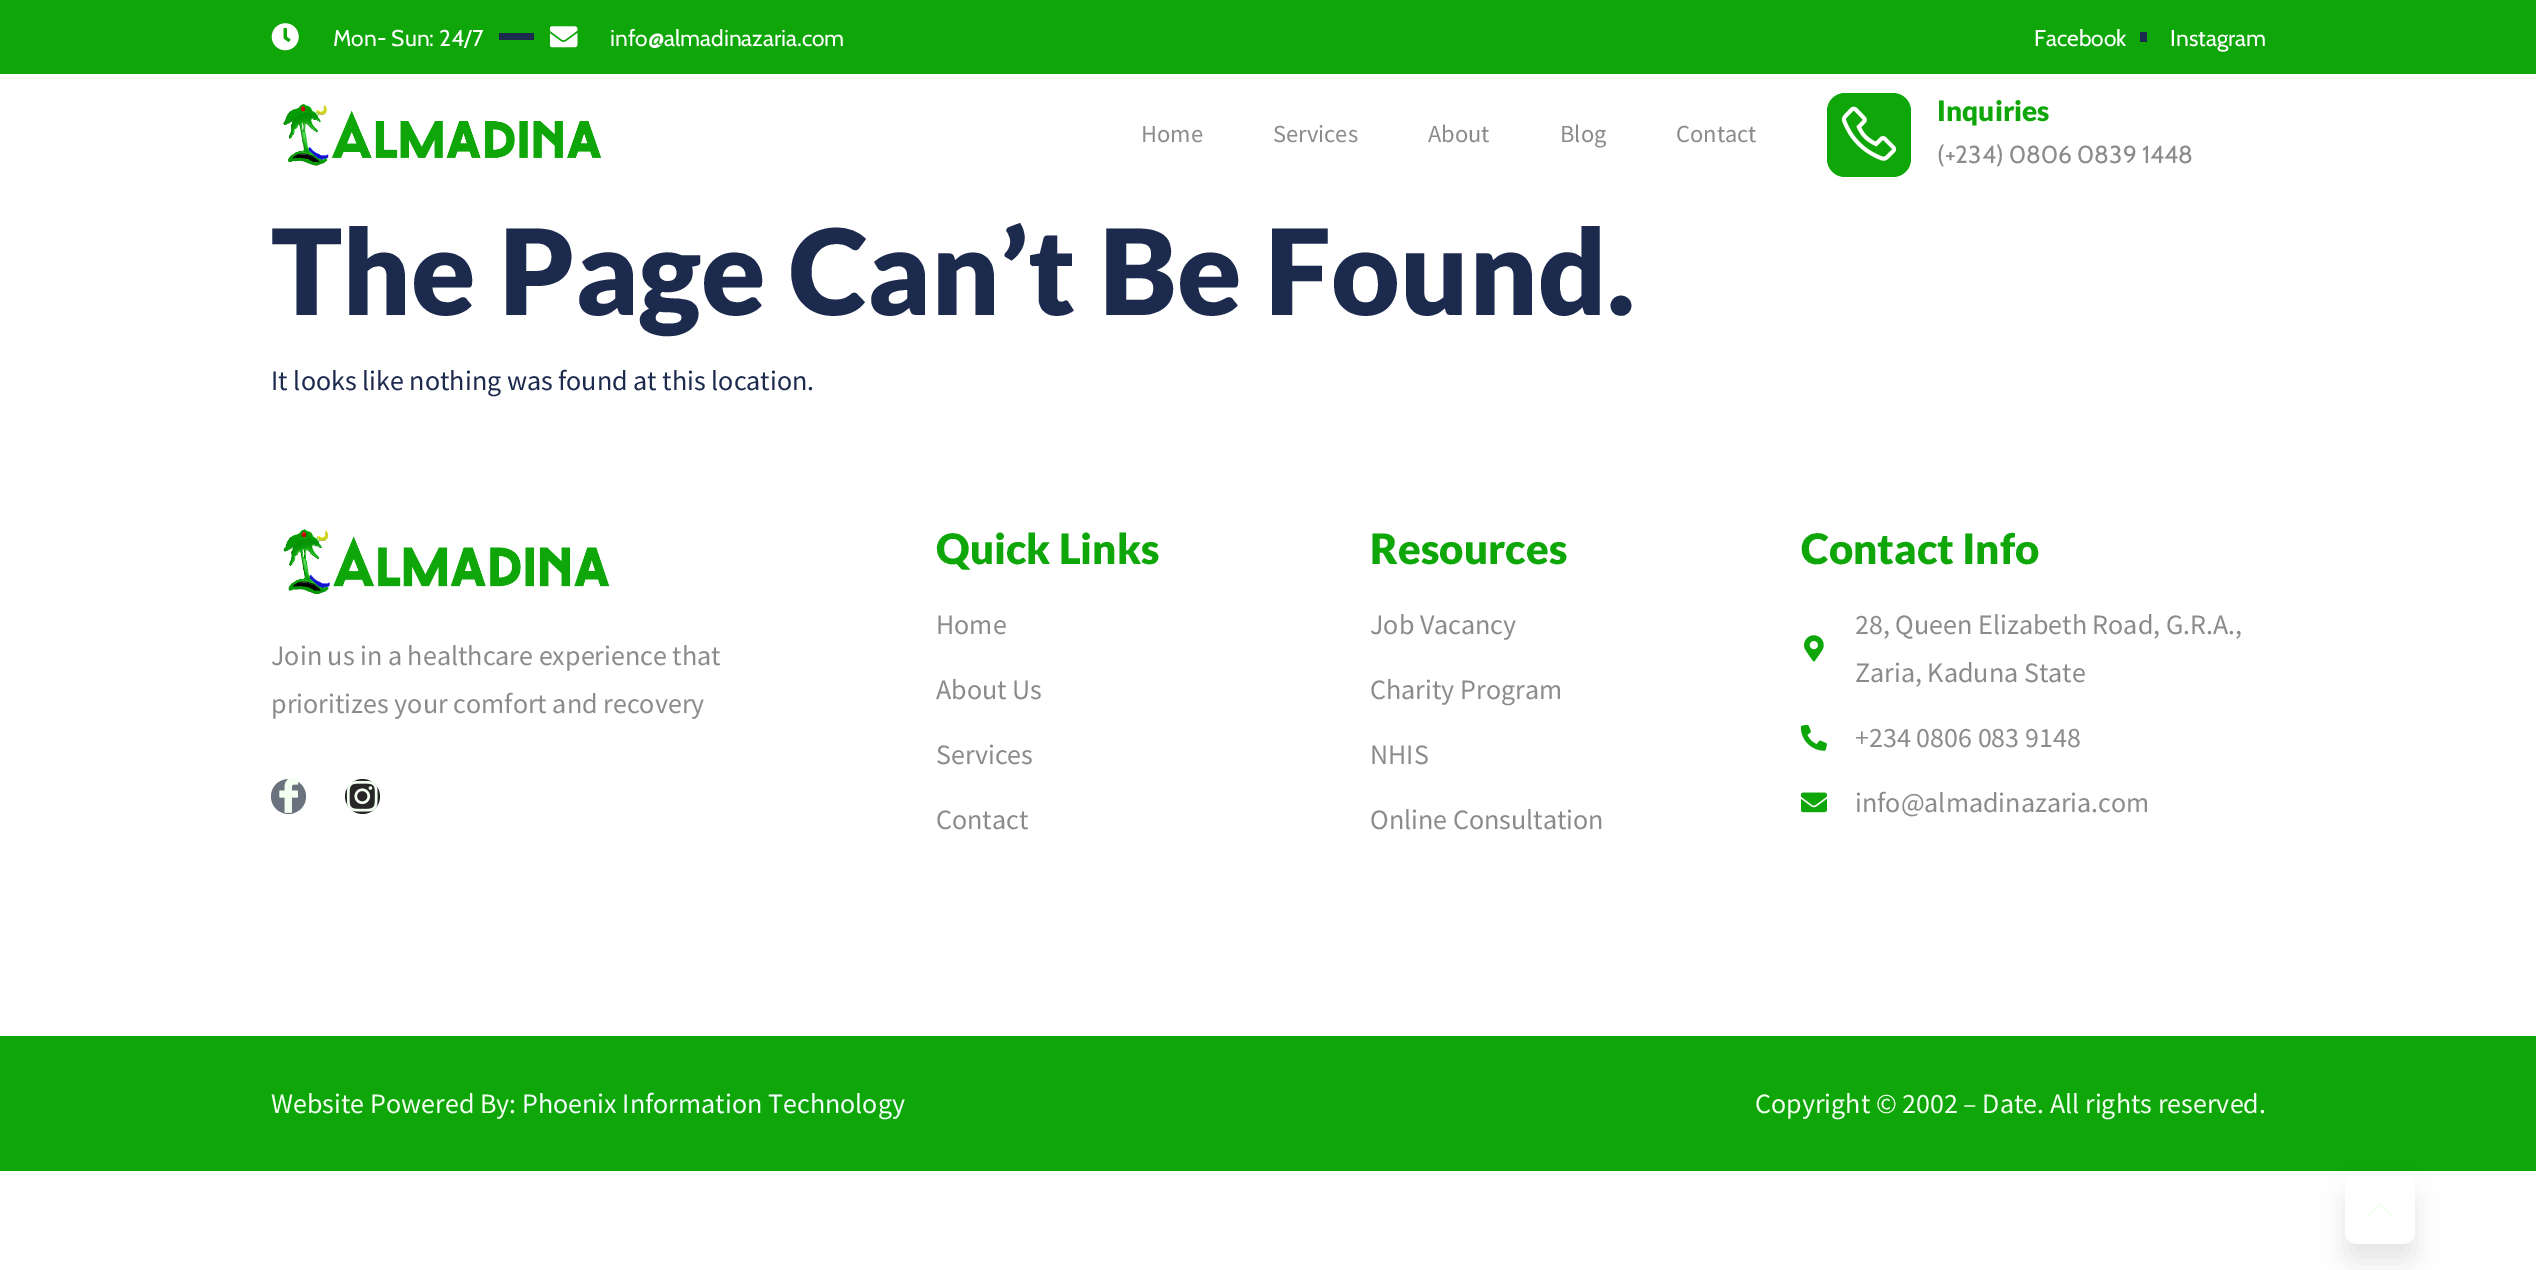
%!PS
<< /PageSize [2536 1270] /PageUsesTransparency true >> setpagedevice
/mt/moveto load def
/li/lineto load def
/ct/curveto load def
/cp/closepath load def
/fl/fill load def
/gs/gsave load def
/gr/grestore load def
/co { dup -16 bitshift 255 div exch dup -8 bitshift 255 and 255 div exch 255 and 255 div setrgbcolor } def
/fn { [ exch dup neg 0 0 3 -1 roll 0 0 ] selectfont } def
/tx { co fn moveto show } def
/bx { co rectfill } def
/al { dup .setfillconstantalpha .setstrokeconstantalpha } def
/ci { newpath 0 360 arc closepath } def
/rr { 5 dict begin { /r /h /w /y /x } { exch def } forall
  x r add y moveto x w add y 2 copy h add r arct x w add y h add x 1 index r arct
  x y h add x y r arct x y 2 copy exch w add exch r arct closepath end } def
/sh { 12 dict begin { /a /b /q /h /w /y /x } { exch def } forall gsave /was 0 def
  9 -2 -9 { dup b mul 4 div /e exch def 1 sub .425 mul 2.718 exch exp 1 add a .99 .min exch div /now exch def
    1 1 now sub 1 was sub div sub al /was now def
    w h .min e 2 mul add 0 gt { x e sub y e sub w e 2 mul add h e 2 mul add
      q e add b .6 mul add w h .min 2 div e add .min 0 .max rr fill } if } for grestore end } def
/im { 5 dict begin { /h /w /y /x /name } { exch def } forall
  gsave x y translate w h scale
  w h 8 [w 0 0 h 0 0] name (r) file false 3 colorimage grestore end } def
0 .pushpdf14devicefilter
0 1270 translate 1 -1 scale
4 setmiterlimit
0 0 2536 1270 16#FFFFFF bx
0 0 2536 74 16#0EA608 bx
(media/1.raw) 271 23 28 28 im
499 33 35 7 16#1C2A4D bx
(media/2.raw) 550 26 28 22 im
2140 32 7 10 16#1C2A4D bx
(media/3.raw) 283 103 319 63 im
16#0EA608 co
1827 93 84 84 18 rr fl
(media/4.raw) 1841 106 56 55 im
(media/5.raw) 283 529 327 65 im
16#69727D co
288.5 796.5 17.5 ci fl
(media/6.raw) 279 778 20 35 im
16#262626 co
362.5 796.5 17.5 ci fl
(media/7.raw) 346 780 32 32 im
(media/8.raw) 1804 635 20 27 im
(media/9.raw) 1801 725 26 26 im
(media/10.raw) 1801 792 26 21 im
0 1036 2536 135 16#0EA608 bx
gs
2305 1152 mt 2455 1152 li 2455 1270 li 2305 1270 li cp 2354 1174 mt 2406 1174 li 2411 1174 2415 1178 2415 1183 ct 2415 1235 li 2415 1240 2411 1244 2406 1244 ct 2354 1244 li 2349 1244 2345 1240 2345 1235 ct 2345 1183 li 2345 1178 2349 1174 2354 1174 ct cp eoclip newpath
16#000000 co
2345 1192 70 70 9 13 .1 sh
gr
(media/11.raw) 2368 1203 24 13 im
(Mon- Sun: 24/7) 333 46 /Cabin-Regular 22.75 16#FFFFFF tx
(info@almadinazaria.com) 610 46 /Cabin-Regular 22.75 16#FFFFFF tx
(Facebook) 2034 46 /Cabin-Regular 22.75 16#FFFFFF tx
(Instagram) 2170 46 /Cabin-Regular 22.75 16#FFFFFF tx
(Home) 1141 142 /SourceSansPro-Regular 24.5 16#8B8B8B tx
(Services) 1273 142 /SourceSansPro-Regular 24.5 16#8B8B8B tx
(About) 1428 142 /SourceSansPro-Regular 24.5 16#8B8B8B tx
(Blog) 1560 142 /SourceSansPro-Regular 24.5 16#8B8B8B tx
(Contact) 1676 142 /SourceSansPro-Regular 24.5 16#8B8B8B tx
(Inquiries) 1937 121 /Lato-Black 28 16#0EA608 tx
(\(+234\) 0806 0839 1448) 1937 163 /Cabin-Regular 24.5 16#8B8B8B tx
(The Page Can’t Be Found.) 271 315 /Lato-Black 119 16#1C2A4D tx
(It looks like nothing was found at this location.) 271 390 /SourceSansPro-Regular 28 16#1C2A4D tx
(Join us in a healthcare experience that) 271 665 /SourceSansPro-Regular 28 16#8B8B8B tx
(prioritizes your comfort and recovery) 271 713 /SourceSansPro-Regular 28 16#8B8B8B tx
(Quick Links) 936 564 /Lato-Black 42 16#0EA608 tx
(Home) 936 634 /SourceSansPro-Regular 28 16#8B8B8B tx
(About Us) 936 699 /SourceSansPro-Regular 28 16#8B8B8B tx
(Services) 936 764 /SourceSansPro-Regular 28 16#8B8B8B tx
(Contact) 936 829 /SourceSansPro-Regular 28 16#8B8B8B tx
(Resources) 1370 564 /Lato-Black 42 16#0EA608 tx
(Job Vacancy) 1370 634 /SourceSansPro-Regular 28 16#8B8B8B tx
(Charity Program) 1370 699 /SourceSansPro-Regular 28 16#8B8B8B tx
(NHIS) 1370 764 /SourceSansPro-Regular 28 16#8B8B8B tx
(Online Consultation) 1370 829 /SourceSansPro-Regular 28 16#8B8B8B tx
(Contact Info) 1801 564 /Lato-Black 42 16#0EA608 tx
(28, Queen Elizabeth Road, G.R.A.,) 1855 634 /SourceSansPro-Regular 28 16#8B8B8B tx
(Zaria, Kaduna State) 1855 682 /SourceSansPro-Regular 28 16#8B8B8B tx
(+234 0806 083 9148) 1855 747 /SourceSansPro-Regular 28 16#8B8B8B tx
(info@almadinazaria.com) 1855 812 /SourceSansPro-Regular 28 16#8B8B8B tx
(Website Powered By:) 271 1113 /SourceSansPro-Regular 28 16#F2FFF1 tx
(Phoenix Information Technology) 522 1113 /SourceSansPro-Regular 28 16#F3FFFE tx
(Copyright © 2002 – Date. All rights reserved.) 1755 1113 /SourceSansPro-Regular 28 16#F2FFF1 tx
.poppdf14devicefilter showpage
